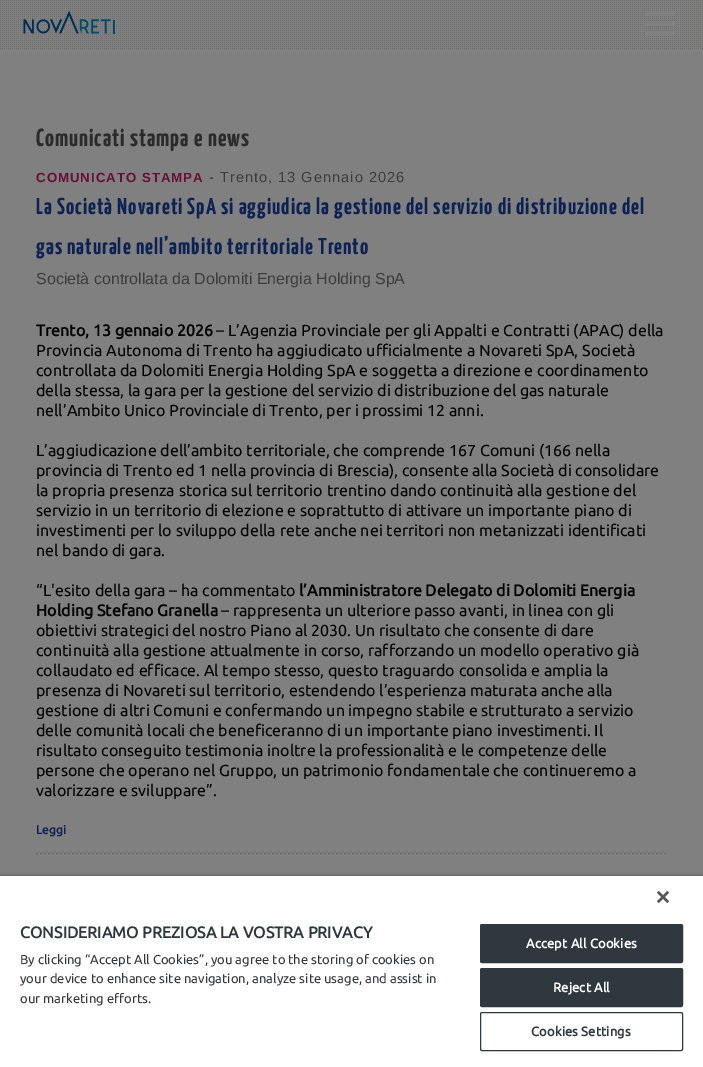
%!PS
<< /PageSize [703 1067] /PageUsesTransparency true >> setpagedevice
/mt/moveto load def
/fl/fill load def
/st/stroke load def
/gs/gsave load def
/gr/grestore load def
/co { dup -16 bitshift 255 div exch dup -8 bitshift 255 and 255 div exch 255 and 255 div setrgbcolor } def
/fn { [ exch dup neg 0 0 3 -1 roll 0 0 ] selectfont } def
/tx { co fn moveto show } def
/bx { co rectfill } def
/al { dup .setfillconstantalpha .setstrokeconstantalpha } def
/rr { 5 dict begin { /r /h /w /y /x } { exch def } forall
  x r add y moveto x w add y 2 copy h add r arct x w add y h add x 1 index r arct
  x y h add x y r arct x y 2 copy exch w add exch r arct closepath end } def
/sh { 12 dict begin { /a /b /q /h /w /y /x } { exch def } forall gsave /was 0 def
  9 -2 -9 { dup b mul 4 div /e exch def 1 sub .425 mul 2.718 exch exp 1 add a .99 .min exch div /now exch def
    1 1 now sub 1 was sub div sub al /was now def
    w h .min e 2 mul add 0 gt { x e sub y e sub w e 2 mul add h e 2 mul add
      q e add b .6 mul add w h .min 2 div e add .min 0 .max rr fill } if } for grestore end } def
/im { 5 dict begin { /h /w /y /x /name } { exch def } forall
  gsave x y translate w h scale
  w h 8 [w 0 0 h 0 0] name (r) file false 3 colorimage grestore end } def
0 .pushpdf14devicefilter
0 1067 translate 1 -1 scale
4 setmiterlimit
0 0 703 1067 16#808080 bx
(media/1.raw) 0 0 703 49 im
(media/2.raw) 23 10 92 24 im
645 12 30 3 1.5 rr fl
645 22 30 3 1.5 rr fl
645 32 30 3 1.5 rr fl
(media/3.raw) 36 852 631 2 im
16#000000 co
0 876 703 191 0 2 .35 sh
0 876 703 191 16#FFFFFF bx
(media/4.raw) 657 891 12 12 im
16#2F373F co
480.5 924.5 202 38 1.5 rr gs fl gr
st
480.5 968.5 202 38 1.5 rr gs fl gr
st
480.5 1012.5 202 38 1.5 rr st
/YanoneKaffeesatz-Bold 24.75 fn
16#2B2B2B co
36 146 mt 1 0 (Comunicati stampa e news) ashow
/LiberationSans-Bold 13.25 fn
16#680D3A co
36 182 mt 1 0 (COMUNICATO STAMPA) ashow
/LiberationSans-Regular 14.6 fn
16#3C3C3C co
209 182 mt 1 0 (- Trento, 13 Gennaio 2026) ashow
/YanoneKaffeesatz-Bold 23 fn
16#0D2153 co
36 214 mt 1 0 (La Società Novareti SpA si aggiudica la gestione del servizio di distribuzione del) ashow
36 254 mt 1 0 (gas naturale nell’ambito territoriale Trento) ashow
(Società controllata da Dolomiti Energia Holding SpA) 36 284 /LiberationSans-Regular 16 16#3C3C3C tx
(Trento, 13 gennaio 2026) 36 336 /Ubuntu-Bold 16 16#000000 tx
(– L’Agenzia Provinciale per gli Appalti e Contratti \(APAC\) della) 216 336 /Ubuntu-Regular 16 16#000000 tx
(Provincia Autonoma di Trento ha aggiudicato ufficialmente a Novareti SpA, Società) 36 356 /Ubuntu-Regular 16 16#000000 tx
(controllata da Dolomiti Energia Holding SpA e soggetta a direzione e coordinamento) 36 376 /Ubuntu-Regular 16 16#000000 tx
(della stessa, la gara per la gestione del servizio di distribuzione del gas naturale) 36 396 /Ubuntu-Regular 16 16#000000 tx
(nell’Ambito Unico Provinciale di Trento, per i prossimi 12 anni.) 36 416 /Ubuntu-Regular 16 16#000000 tx
(L’aggiudicazione dell’ambito territoriale, che comprende 167 Comuni \(166 nella) 36 456 /Ubuntu-Regular 16 16#000000 tx
(provincia di Trento ed 1 nella provincia di Brescia\), consente alla Società di consolidare) 36 476 /Ubuntu-Regular 16 16#000000 tx
(la propria presenza storica sul territorio trentino dando continuità alla gestione del) 36 496 /Ubuntu-Regular 16 16#000000 tx
(servizio in un territorio di elezione e soprattutto di attivare un importante piano di) 36 516 /Ubuntu-Regular 16 16#000000 tx
(investimenti per lo sviluppo della rete anche nei territori non metanizzati identificati) 36 536 /Ubuntu-Regular 16 16#000000 tx
(nel bando di gara.) 36 556 /Ubuntu-Regular 16 16#000000 tx
(“L'esito della gara – ha commentato) 36 596 /Ubuntu-Regular 16 16#000000 tx
(l’Amministratore Delegato di Dolomiti Energia) 299 596 /Ubuntu-Bold 16 16#000000 tx
(Holding Stefano Granella) 36 616 /Ubuntu-Bold 16 16#000000 tx
(– rappresenta un ulteriore passo avanti, in linea con gli) 221 616 /Ubuntu-Regular 16 16#000000 tx
(obiettivi strategici del nostro Piano al 2030. Un risultato che consente di dare) 36 636 /Ubuntu-Regular 16 16#000000 tx
(continuità alla gestione attualmente in corso, rafforzando un modello operativo già) 36 656 /Ubuntu-Regular 16 16#000000 tx
(collaudato ed efficace. Al tempo stesso, questo traguardo consolida e amplia la) 36 676 /Ubuntu-Regular 16 16#000000 tx
(presenza di Novareti sul territorio, estendendo l’esperienza maturata anche alla) 36 696 /Ubuntu-Regular 16 16#000000 tx
(gestione di altri Comuni e confermando un impegno stabile e strutturato a servizio) 36 716 /Ubuntu-Regular 16 16#000000 tx
(delle comunità locali che beneficeranno di un importante piano investimenti. Il) 36 736 /Ubuntu-Regular 16 16#000000 tx
(risultato conseguito testimonia inoltre la professionalità e le competenze delle) 36 756 /Ubuntu-Regular 16 16#000000 tx
(persone che operano nel Gruppo, un patrimonio fondamentale che continueremo a) 36 776 /Ubuntu-Regular 16 16#000000 tx
(valorizzare e sviluppare”.) 36 796 /Ubuntu-Regular 16 16#000000 tx
(Leggi) 36 834 /Ubuntu-Bold 12 16#0D2153 tx
(CONSIDERIAMO PREZIOSA LA VOSTRA PRIVACY) 20 938 /Ubuntu-Bold 16 16#2F373F tx
(By clicking “Accept All Cookies”, you agree to the storing of cookies on) 20 964 /Ubuntu-Regular 13 16#2F373F tx
(your device to enhance site navigation, analyze site usage, and assist in) 20 983 /Ubuntu-Regular 13 16#2F373F tx
(our marketing efforts.) 20 1003 /Ubuntu-Regular 13 16#2F373F tx
/Ubuntu-Bold 13 fn
16#FFFFFF co
526 948 mt .1 0 (Accept All Cookies) ashow
553 992 mt .1 0 (Reject All) ashow
16#2F373F co
531 1036 mt .1 0 (Cookies Settings) ashow
.poppdf14devicefilter showpage
